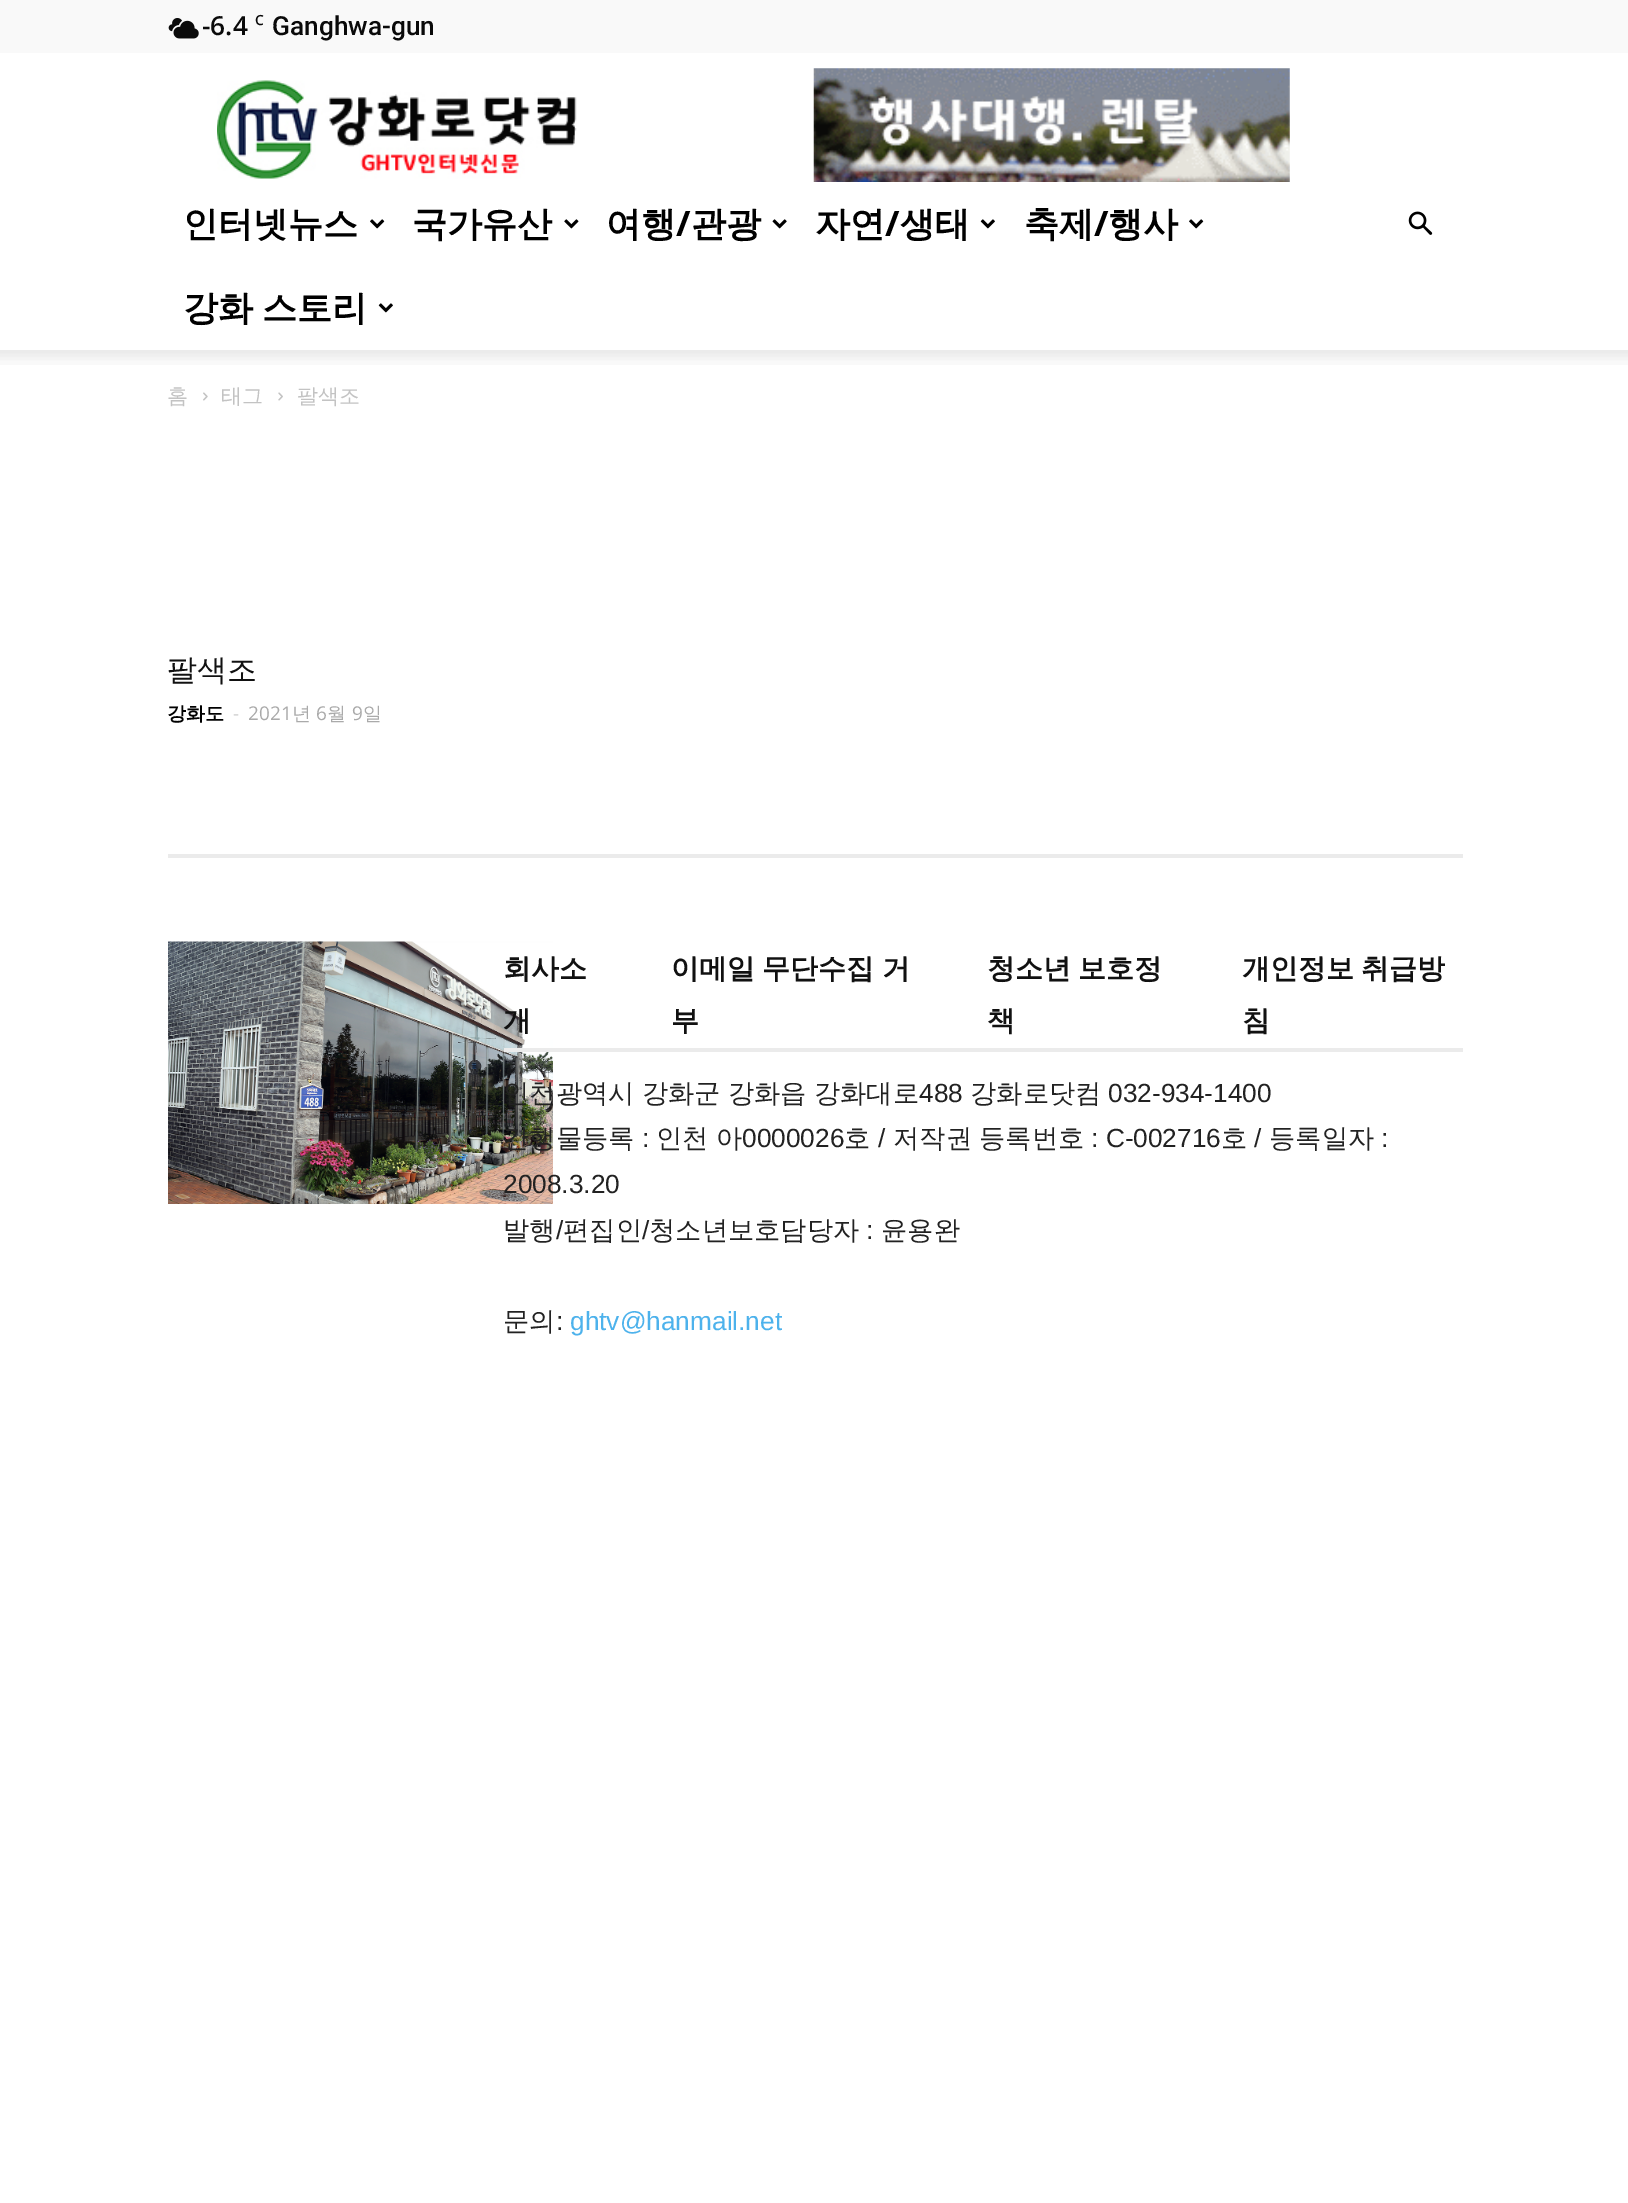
%!PS
<< /PageSize [1628 2203] >> setpagedevice
/mt/moveto load def
/co { dup -16 bitshift 255 div exch dup -8 bitshift 255 and 255 div exch 255 and 255 div setrgbcolor } def
/fn { [ exch dup neg 0 0 3 -1 roll 0 0 ] selectfont } def
/tx { co fn moveto show } def
/bx { co rectfill } def
/im { 5 dict begin { /h /w /y /x /name } { exch def } forall
  gsave x y translate w h scale
  w h 8 [w 0 0 h 0 0] name (r) file false 3 colorimage grestore end } def
0 2203 translate 1 -1 scale
4 setmiterlimit
0 0 1628 2203 16#FFFFFF bx
0 0 1628 53 16#F9F9F9 bx
(media/1.raw) 168 18 31 21 im
(media/2.raw) 217 80 360 99 im
(media/3.raw) 813 68 477 114 im
(media/4.raw) 370 219 15 10 im
(media/5.raw) 564 219 15 10 im
(media/6.raw) 772 219 15 10 im
(media/7.raw) 980 219 15 10 im
(media/4.raw) 1189 219 15 10 im
(media/7.raw) 378 303 15 10 im
(media/8.raw) 1408 211 25 24 im
(media/9.raw) 0 350 1628 15 im
(media/10.raw) 203 392 5 9 im
(media/11.raw) 278 392 5 9 im
168 854 1295 4 16#EBEBEB bx
(media/12.raw) 168 941 385 263 im
504 1048 959 4 16#EBEBEB bx
(-6.4) 202 35 /OpenSans-SemiBold 26.25 16#0A0A0A tx
(C) 255 25 /OpenSans-SemiBold 14 16#0A0A0A tx
(Ganghwa-gun) 272 35 /Roboto-Medium 26.25 16#0A0A0A tx
(인터넷뉴스) 183 236 /WenQuanYiZenHei-Bold 35 16#000000 tx
(국가유산) 412 236 /WenQuanYiZenHei-Bold 35 16#000000 tx
(여행) 606 236 /WenQuanYiZenHei-Bold 35 16#000000 tx
(/) 676 236 /OpenSans-Bold 35 16#000000 tx
(관광) 691 236 /WenQuanYiZenHei-Bold 35 16#000000 tx
(자연) 815 236 /WenQuanYiZenHei-Bold 35 16#000000 tx
(/) 885 236 /OpenSans-Bold 35 16#000000 tx
(생태) 900 236 /WenQuanYiZenHei-Bold 35 16#000000 tx
(축제) 1024 236 /WenQuanYiZenHei-Bold 35 16#000000 tx
(/) 1094 236 /OpenSans-Bold 35 16#000000 tx
(행사) 1108 236 /WenQuanYiZenHei-Bold 35 16#000000 tx
183 320 mt -1 0 32 (강화 스토리) widthshow
(홈) 167 403 /WenQuanYiZenHei-Medium 21 16#C3C3C3 tx
(태그) 221 403 /WenQuanYiZenHei-Medium 21 16#C3C3C3 tx
(팔색조) 297 403 /WenQuanYiZenHei-Medium 21 16#C3C3C3 tx
(팔색조) 167 680 /WenQuanYiZenHei-Medium 30 16#111111 tx
(강화도) 167 720 /WenQuanYiZenHei-Bold 19 16#000000 tx
(-) 233 720 /OpenSans-Regular 19 16#CCCCCC tx
(2021) 248 720 /OpenSans-Regular 19 16#AAAAAA tx
(년) 292 720 /WenQuanYiZenHei-Medium 19 16#AAAAAA tx
(6) 316 720 /OpenSans-Regular 19 16#AAAAAA tx
(월) 327 720 /WenQuanYiZenHei-Medium 19 16#AAAAAA tx
(9) 352 720 /OpenSans-Regular 19 16#AAAAAA tx
(일) 363 720 /WenQuanYiZenHei-Medium 19 16#AAAAAA tx
(회사소) 503 978 /WenQuanYiZenHei-Bold 28 16#111111 tx
(개) 503 1030 /WenQuanYiZenHei-Bold 28 16#111111 tx
671 978 mt -1 0 32 (이메일 무단수집 거) widthshow
(부) 671 1030 /WenQuanYiZenHei-Bold 28 16#111111 tx
987 978 mt -1 0 32 (청소년 보호정) widthshow
(책) 987 1030 /WenQuanYiZenHei-Bold 28 16#111111 tx
1242 978 mt -1 0 32 (개인정보 취급방) widthshow
(침) 1242 1030 /WenQuanYiZenHei-Bold 28 16#111111 tx
/WenQuanYiZenHei-Medium 26.25 fn
16#222222 co
503 1102 mt -.5 0 32 (인천광역시 강화군 강화읍 강화대로) widthshow
(488) 919 1102 /LiberationSans-Regular 26.25 16#222222 tx
(강화로닷컴) 970 1102 /WenQuanYiZenHei-Medium 26.25 16#222222 tx
(032-934-1400) 1108 1102 /LiberationSans-Regular 26.25 16#222222 tx
(간행물등록) 503 1147 /WenQuanYiZenHei-Medium 26.25 16#222222 tx
(:) 642 1147 /LiberationSans-Regular 26.25 16#222222 tx
(인천) 656 1147 /WenQuanYiZenHei-Medium 26.25 16#222222 tx
(아) 716 1147 /WenQuanYiZenHei-Medium 26.25 16#222222 tx
(0000026) 742 1147 /LiberationSans-Regular 26.25 16#222222 tx
(호) 844 1147 /WenQuanYiZenHei-Medium 26.25 16#222222 tx
(/) 878 1147 /LiberationSans-Regular 26.25 16#222222 tx
(저작권) 893 1147 /WenQuanYiZenHei-Medium 26.25 16#222222 tx
(등록번호) 979 1147 /WenQuanYiZenHei-Medium 26.25 16#222222 tx
(: C-002716) 1091 1147 /LiberationSans-Regular 26.25 16#222222 tx
(호) 1221 1147 /WenQuanYiZenHei-Medium 26.25 16#222222 tx
(/) 1254 1147 /LiberationSans-Regular 26.25 16#222222 tx
(등록일자) 1269 1147 /WenQuanYiZenHei-Medium 26.25 16#222222 tx
(:) 1381 1147 /LiberationSans-Regular 26.25 16#222222 tx
(2008.3.20) 503 1193 /LiberationSans-Regular 26.25 16#222222 tx
(발행) 503 1239 /WenQuanYiZenHei-Medium 26.25 16#222222 tx
(/) 556 1239 /LiberationSans-Regular 26.25 16#222222 tx
(편집인) 563 1239 /WenQuanYiZenHei-Medium 26.25 16#222222 tx
(/) 642 1239 /LiberationSans-Regular 26.25 16#222222 tx
(청소년보호담당자) 649 1239 /WenQuanYiZenHei-Medium 26.25 16#222222 tx
(:) 866 1239 /LiberationSans-Regular 26.25 16#222222 tx
(윤용완) 881 1239 /WenQuanYiZenHei-Medium 26.25 16#222222 tx
(문의) 503 1330 /WenQuanYiZenHei-Medium 26.25 16#222222 tx
(:) 556 1330 /LiberationSans-Regular 26.25 16#222222 tx
(ghtv@hanmail.net) 570 1330 /LiberationSans-Regular 26.25 16#4DB2EC tx
showpage
